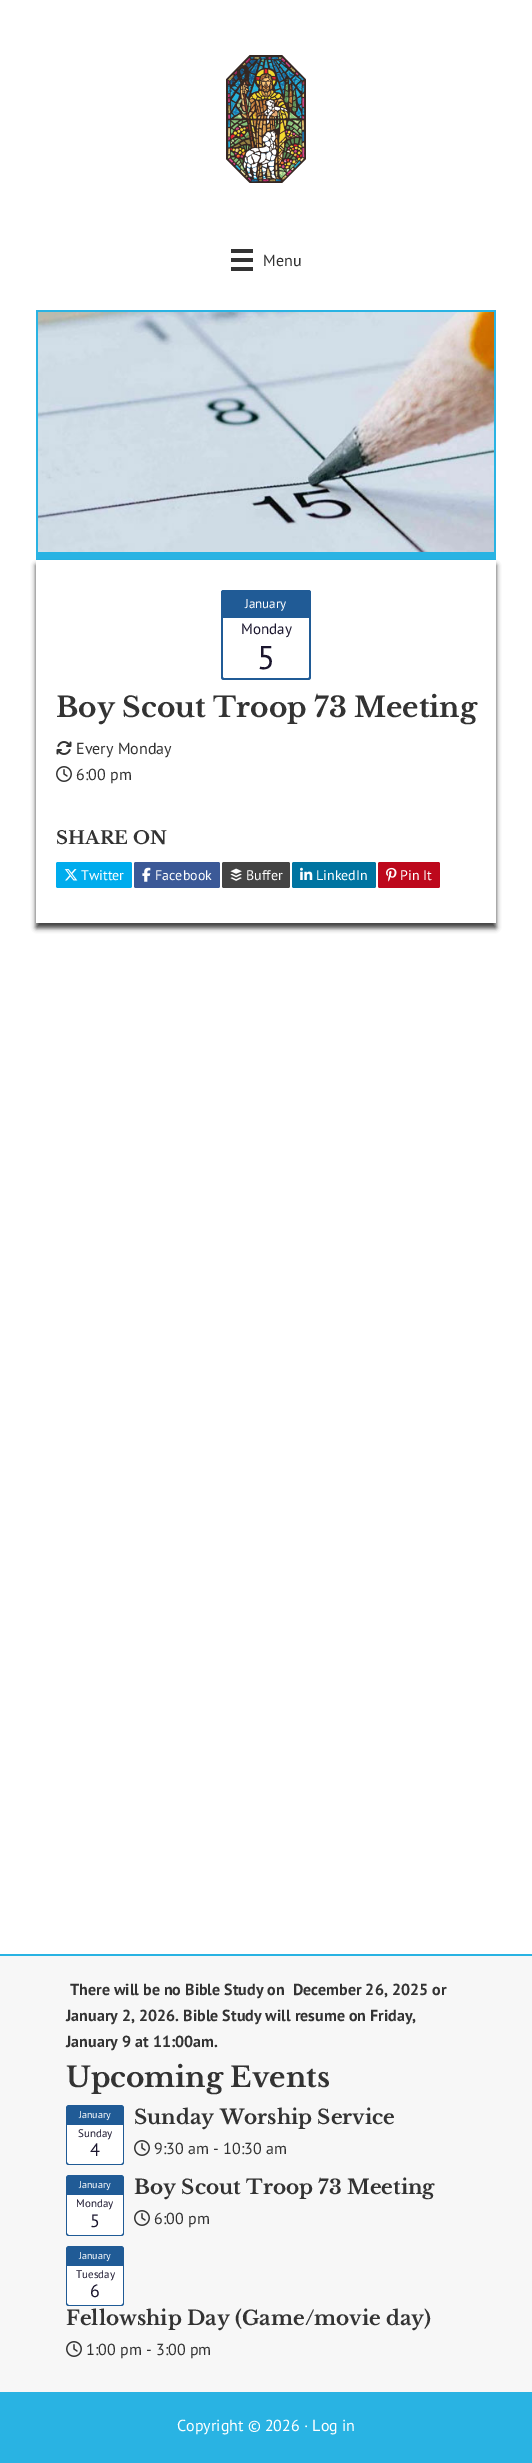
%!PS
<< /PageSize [532 2463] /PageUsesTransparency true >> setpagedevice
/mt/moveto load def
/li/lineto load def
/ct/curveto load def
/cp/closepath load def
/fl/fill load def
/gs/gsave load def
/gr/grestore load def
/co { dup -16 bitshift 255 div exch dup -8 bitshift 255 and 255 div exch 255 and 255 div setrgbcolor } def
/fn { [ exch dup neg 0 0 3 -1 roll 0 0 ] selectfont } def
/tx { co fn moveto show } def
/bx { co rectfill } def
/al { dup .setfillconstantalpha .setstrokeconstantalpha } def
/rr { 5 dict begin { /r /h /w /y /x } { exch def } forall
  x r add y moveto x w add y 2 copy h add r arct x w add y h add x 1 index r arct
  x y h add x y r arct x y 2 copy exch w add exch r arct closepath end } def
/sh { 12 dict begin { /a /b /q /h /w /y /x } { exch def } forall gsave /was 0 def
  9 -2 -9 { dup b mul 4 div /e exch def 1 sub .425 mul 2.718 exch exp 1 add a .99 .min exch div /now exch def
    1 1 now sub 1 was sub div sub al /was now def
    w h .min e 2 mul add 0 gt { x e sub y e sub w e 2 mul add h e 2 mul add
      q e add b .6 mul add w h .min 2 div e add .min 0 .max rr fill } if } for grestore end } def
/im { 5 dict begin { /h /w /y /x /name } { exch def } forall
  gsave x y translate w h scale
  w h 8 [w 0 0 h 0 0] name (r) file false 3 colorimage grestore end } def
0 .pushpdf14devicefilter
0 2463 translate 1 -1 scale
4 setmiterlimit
0 0 532 2463 16#FFFFFF bx
(media/1.raw) 226 55 80 128 im
231 249 22 4 16#333333 bx
231 258 22 4 16#333333 bx
231 267 22 4 16#333333 bx
(media/2.raw) 38 312 456 240 im
36 310 460 2 16#29B3E3 bx
494 310 2 250 16#29B3E3 bx
36 552 460 8 16#29B3E3 bx
36 310 2 250 16#29B3E3 bx
gs
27 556 mt 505 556 li 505 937 li 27 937 li cp 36 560 mt 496 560 li 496 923 li 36 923 li cp eoclip newpath
16#000000 co
36 565 460 363 0 2.5 .75 sh
gr
16#205B96 co
224 590 mt 308 590 li 309.5 590 311 591.5 311 593 ct 311 618 li 221 618 li 221 593 li 221 591.5 222.5 590 224 590 ct cp fl
224 590 mt 308 590 li 310 590 311 591 311 593 ct 311 618 li 221 618 li 221 593 li 221 591 222 590 224 590 ct cp 224 592 mt 308 592 li 309 592 309 592 309 593 ct 309 618 li 223 618 li 223 593 222 592 224 592 ct cp eofill
309 618 2 22 16#205B96 bx
221 618 2 22 16#205B96 bx
221 640 mt 311 640 li 311 677 li 311 679 310 680 308 680 ct 224 680 li 222 680 221 679 221 677 ct cp 223 640 mt 309 640 li 309 677 li 309 678 309 678 308 678 ct 224 678 li 223 678 223 678 223 677 ct cp eofill
(media/3.raw) 56 741 16 14 im
(media/4.raw) 56 766 16 16 im
16#00ACED co
56 862 76 26 2 rr fl
(media/5.raw) 64 869 14 12 im
16#3B5997 co
134 862 86 26 2 rr fl
(media/6.raw) 142 867 9 15 im
16#444444 co
222 862 68 26 2 rr fl
(media/7.raw) 230 868 12 13 im
16#0074A1 co
292 862 84 26 2 rr fl
(media/8.raw) 300 867 13 13 im
16#BD081C co
378 862 62 26 2 rr fl
(media/9.raw) 386 867 11 15 im
0 1956 532 436 16#F7F7F7 bx
0 1954 532 2 16#29B3E3 bx
16#205B96 co
69 2105 mt 121 2105 li 122.5 2105 124 2106.5 124 2108 ct 124 2125 li 66 2125 li 66 2108 li 66 2106.5 67.5 2105 69 2105 ct cp fl
123 2107 1 1 16#205B96 bx
66 2107 1 1 16#205B96 bx
67 2125 56 16 16#FFFFFF bx
123 2125 1 16 16#205B96 bx
66 2125 1 16 16#205B96 bx
16#FFFFFF co
66 2141 mt 124 2141 li 124 2162 li 124 2163.5 122.5 2165 121 2165 ct 69 2165 li 67.5 2165 66 2163.5 66 2162 ct cp fl
16#205B96 co
66 2141 mt 124 2141 li 124 2162 li 124 2164 123 2165 121 2165 ct 69 2165 li 67 2165 66 2164 66 2162 ct cp 67 2141 mt 123 2141 li 123 2162 li 123 2163 122 2164 121 2164 ct 69 2164 li 68 2164 67 2163 67 2162 ct cp eofill
(media/10.raw) 134 2140 16 16 im
69 2175 mt 121 2175 li 122.5 2175 124 2176.5 124 2178 ct 124 2195 li 66 2195 li 66 2178 li 66 2176.5 67.5 2175 69 2175 ct cp fl
123 2177 1 1 16#205B96 bx
66 2177 1 1 16#205B96 bx
67 2195 56 17 16#FFFFFF bx
123 2195 1 17 16#205B96 bx
66 2195 1 17 16#205B96 bx
16#FFFFFF co
66 2212 mt 124 2212 li 124 2233 li 124 2234.5 122.5 2236 121 2236 ct 69 2236 li 67.5 2236 66 2234.5 66 2233 ct cp fl
16#205B96 co
66 2212 mt 124 2212 li 124 2233 li 124 2235 123 2236 121 2236 ct 69 2236 li 67 2236 66 2235 66 2233 ct cp 67 2212 mt 123 2212 li 123 2233 li 123 2234 122 2235 121 2235 ct 69 2235 li 68 2235 67 2234 67 2233 ct cp eofill
(media/10.raw) 134 2210 16 16 im
69 2246 mt 121 2246 li 122.5 2246 124 2247.5 124 2249 ct 124 2266 li 66 2266 li 66 2249 li 66 2247.5 67.5 2246 69 2246 ct cp fl
123 2248 1 1 16#205B96 bx
66 2248 1 1 16#205B96 bx
67 2266 56 16 16#FFFFFF bx
123 2266 1 16 16#205B96 bx
66 2266 1 16 16#205B96 bx
16#FFFFFF co
66 2282 mt 124 2282 li 124 2303 li 124 2304.5 122.5 2306 121 2306 ct 69 2306 li 67.5 2306 66 2304.5 66 2303 ct cp fl
16#205B96 co
66 2282 mt 124 2282 li 124 2303 li 124 2305 123 2306 121 2306 ct 69 2306 li 67 2306 66 2305 66 2303 ct cp 67 2282 mt 123 2282 li 123 2303 li 123 2304 122 2305 121 2305 ct 69 2305 li 68 2305 67 2304 67 2303 ct cp eofill
(media/10.raw) 66 2341 16 16 im
0 2392 532 71 16#29B3E3 bx
(Menu) 263 266 /PTSans-Regular 16 16#333333 tx
(January) 245 608 /PTSans-Regular 13 16#FFFFFF tx
(Monday) 241 634 /PTSans-Regular 15 16#1B162E tx
(5) 257 669 /PTSans-Regular 33 16#1B162E tx
(Boy Scout Troop 73 Meeting) 56 717 /LibreBaskerville-Bold 28 16#333333 tx
(Every Monday) 76 754 /PTSans-Regular 16 16#333333 tx
(6:00 pm) 76 780 /PTSans-Regular 16 16#333333 tx
(SHARE ON) 56 844 /LibreBaskerville-Bold 18 16#333333 tx
(Twitter) 81 880 /PTSans-Regular 14 16#FFFFFF tx
(Facebook) 155 880 /PTSans-Regular 14 16#FFFFFF tx
(Buffer) 246 880 /PTSans-Regular 14 16#FFFFFF tx
(LinkedIn) 316 880 /PTSans-Regular 14 16#FFFFFF tx
(Pin It) 400 880 /PTSans-Regular 14 16#FFFFFF tx
(There will be no Bible Study on  December 26, 2025 or) 70 1995 /PTSans-Bold 16 16#333333 tx
(January 2, 2026. Bible Study will resume on Friday,) 66 2021 /PTSans-Bold 16 16#333333 tx
(January 9 at 11:00am.) 66 2047 /PTSans-Bold 16 16#333333 tx
(Upcoming Events) 66 2087 /LibreBaskerville-Bold 28 16#333333 tx
(January) 79 2118 /PTSans-Regular 10 16#FFFFFF tx
(Sunday) 78 2137 /PTSans-Regular 11 16#1B162E tx
(4) 90 2156 /PTSans-Regular 18 16#1B162E tx
(Sunday Worship Service) 134 2124 /LibreBaskerville-Bold 20 16#333333 tx
(9:30 am - 10:30 am) 154 2154 /PTSans-Regular 16 16#333333 tx
(January) 79 2188 /PTSans-Regular 10 16#FFFFFF tx
(Monday) 76 2207 /PTSans-Regular 11 16#1B162E tx
(5) 90 2227 /PTSans-Regular 18 16#1B162E tx
(Boy Scout Troop 73 Meeting) 134 2194 /LibreBaskerville-Bold 20 16#333333 tx
(6:00 pm) 154 2224 /PTSans-Regular 16 16#333333 tx
(January) 79 2259 /PTSans-Regular 10 16#FFFFFF tx
(Tuesday) 76 2278 /PTSans-Regular 11 16#1B162E tx
(6) 90 2297 /PTSans-Regular 18 16#1B162E tx
(Fellowship Day \(Game/movie day\)) 66 2325 /LibreBaskerville-Bold 20 16#333333 tx
(1:00 pm - 3:00 pm) 86 2355 /PTSans-Regular 16 16#333333 tx
(Copyright © 2026 · Log in) 177 2431 /PTSans-Regular 16 16#FFFFFF tx
.poppdf14devicefilter showpage
